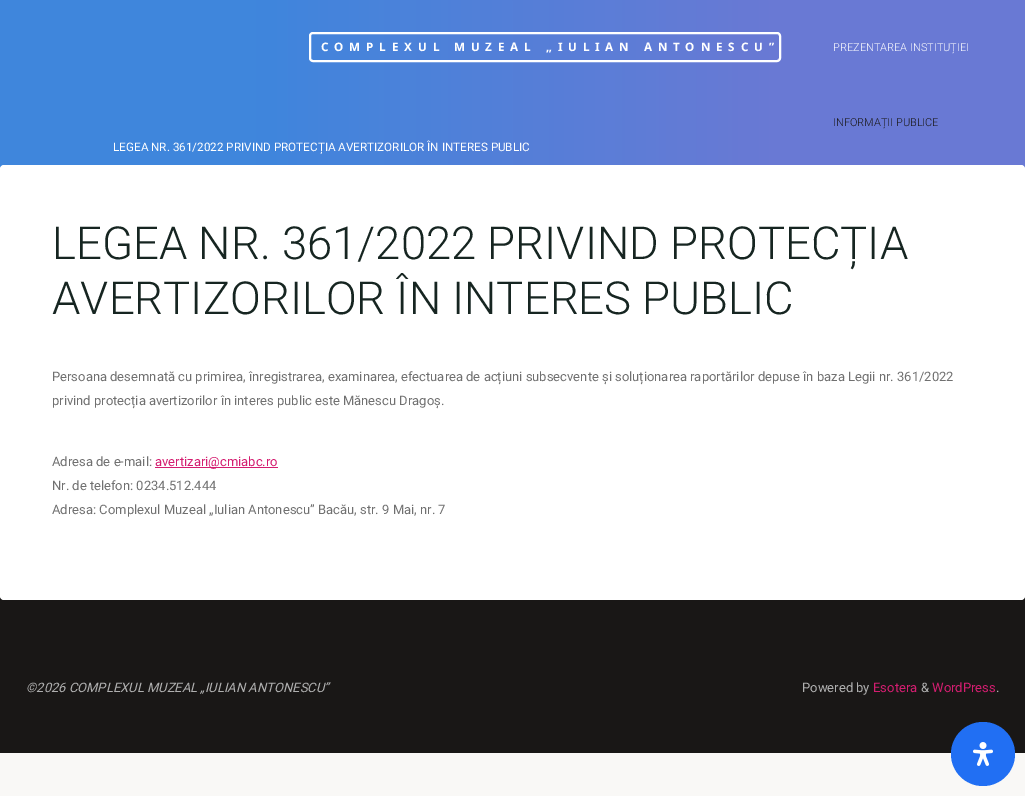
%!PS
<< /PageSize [1025 796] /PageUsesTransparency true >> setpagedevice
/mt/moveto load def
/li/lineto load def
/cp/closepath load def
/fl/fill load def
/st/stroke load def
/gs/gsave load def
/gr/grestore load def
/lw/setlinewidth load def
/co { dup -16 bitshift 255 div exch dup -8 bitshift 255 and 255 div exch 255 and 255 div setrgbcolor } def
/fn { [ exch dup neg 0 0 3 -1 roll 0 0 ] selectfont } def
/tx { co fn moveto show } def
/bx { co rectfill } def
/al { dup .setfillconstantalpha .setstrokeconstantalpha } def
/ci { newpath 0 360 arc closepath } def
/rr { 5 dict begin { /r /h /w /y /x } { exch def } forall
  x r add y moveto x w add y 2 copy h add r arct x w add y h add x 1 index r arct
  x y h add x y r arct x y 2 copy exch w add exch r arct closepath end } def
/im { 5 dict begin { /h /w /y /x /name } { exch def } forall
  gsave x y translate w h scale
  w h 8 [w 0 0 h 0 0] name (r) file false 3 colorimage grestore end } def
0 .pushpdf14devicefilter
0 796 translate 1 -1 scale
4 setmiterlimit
0 0 1025 796 16#F9F8F6 bx
0.85 al
gs 0 0 mt 1025 0 li 1025 169 li 0 169 li cp clip newpath
<< /ShadingType 2 /ColorSpace /DeviceRGB /Coords [0 275 1025 275] /Extend [true true] /Function << /FunctionType 3 /Domain [0 1] /Functions [<< /FunctionType 2 /Domain [0 1] /C0 [.118 .447 .847] /C1 [.118 .447 .847] /N 1 >> << /FunctionType 2 /Domain [0 1] /C0 [.118 .447 .847] /C1 [.314 .388 .808] /N 1 >> << /FunctionType 2 /Domain [0 1] /C0 [.314 .388 .808] /C1 [.314 .388 .808] /N 1 >>] /Bounds [.25 .75] /Encode [0 1 0 1 0 1] >> >> shfill gr
1 al
16#FFFFFF co
2 lw
310 33 470 28 3 rr st
0 596 1025 157 16#191716 bx
16#FFFFFF co
0 165 1025 435 4 rr fl
155 467 123 1 16#D41D70 bx
16#216FF3 co
983 754 32 ci fl
(media/1.raw) 973 742 20 24 im
/NotoSans-Bold 11.7 fn
16#FFFFFF co
321 51 mt 5.85 0 (COMPLEXUL MUZEAL „IULIAN ANTONESCU”) ashow
(PREZENTAREA INSTITUȚIEI) 833 51 /Roboto-Light 11 16#FFFFFF tx
(INFORMAȚII PUBLICE) 833 126 /Roboto-Light 11 16#191716 tx
(LEGEA NR. 361/2022 PRIVIND PROTECȚIA AVERTIZORILOR ÎN INTERES PUBLIC) 113 151 /Roboto-Regular 11.7 16#FFFFFF tx
(LEGEA NR. 361/2022 PRIVIND PROTECȚIA) 52 259 /Roboto-Light 45.5 16#162521 tx
(AVERTIZORILOR ÎN INTERES PUBLIC) 52 314 /Roboto-Light 45.5 16#162521 tx
(Persoana desemnată cu primirea, înregistrarea, examinarea, efectuarea de acțiuni subsecvente și soluționarea raportărilor depuse în baza Legii nr. 361/2022) 52 381 /Roboto-Regular 13 16#707070 tx
(privind protecția avertizorilor în interes public este Mănescu Dragoș.) 52 405 /Roboto-Regular 13 16#707070 tx
(Adresa de e-mail:) 52 466 /Roboto-Regular 13 16#707070 tx
(avertizari@cmiabc.ro) 155 466 /Roboto-Regular 13 16#D41D70 tx
(Nr. de telefon: 0234.512.444) 52 490 /Roboto-Regular 13 16#707070 tx
(Adresa: Complexul Muzeal „Iulian Antonescu” Bacău, str. 9 Mai, nr. 7) 52 514 /Roboto-Regular 13 16#707070 tx
(©2026 COMPLEXUL MUZEAL „IULIAN ANTONESCU”) 26 692 /Roboto-Italic 13 16#AFAFAF tx
(Powered by) 802 692 /Roboto-Regular 13 16#AFAFAF tx
(Esotera) 873 692 /Roboto-Regular 13 16#D41D70 tx
(&) 921 692 /Roboto-Regular 13 16#AFAFAF tx
(WordPress) 932 692 /Roboto-Regular 13 16#D41D70 tx
(.) 996 692 /Roboto-Regular 13 16#AFAFAF tx
.poppdf14devicefilter showpage
